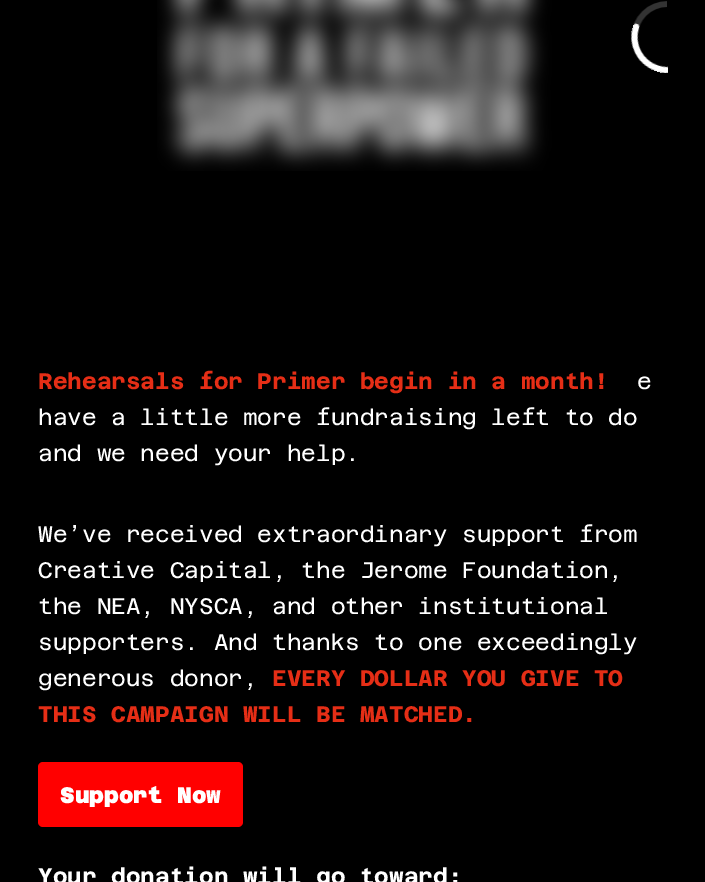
%!PS
<< /PageSize [705 882] >> setpagedevice
/fl/fill load def
/co { dup -16 bitshift 255 div exch dup -8 bitshift 255 and 255 div exch 255 and 255 div setrgbcolor } def
/fn { [ exch dup neg 0 0 3 -1 roll 0 0 ] selectfont } def
/tx { co fn moveto show } def
/bx { co rectfill } def
/rr { 5 dict begin { /r /h /w /y /x } { exch def } forall
  x r add y moveto x w add y 2 copy h add r arct x w add y h add x 1 index r arct
  x y h add x y r arct x y 2 copy exch w add exch r arct closepath end } def
/im { 5 dict begin { /h /w /y /x /name } { exch def } forall
  gsave x y translate w h scale
  w h 8 [w 0 0 h 0 0] name (r) file false 3 colorimage grestore end } def
0 882 translate 1 -1 scale
4 setmiterlimit
0 0 705 882 16#000000 bx
(media/1.raw) 157 0 511 171 im
16#FF0000 co
38 762 205 65 5 rr fl
(Rehearsals for Primer begin in a month!) 38 389 /AzeretMono-Bold 22.5 16#E52E16 tx
(e) 637 389 /AzeretMono-Regular 22.5 16#FFFFFF tx
(have a little more fundraising left to do) 38 425 /AzeretMono-Regular 22.5 16#FFFFFF tx
(and we need your help.) 38 461 /AzeretMono-Regular 22.5 16#FFFFFF tx
(We’ve received extraordinary support from) 38 542 /AzeretMono-Regular 22.5 16#FFFFFF tx
(Creative Capital, the Jerome Foundation,) 38 578 /AzeretMono-Regular 22.5 16#FFFFFF tx
(the NEA, NYSCA, and other institutional) 38 614 /AzeretMono-Regular 22.5 16#FFFFFF tx
(supporters. And thanks to one exceedingly) 38 650 /AzeretMono-Regular 22.5 16#FFFFFF tx
(generous donor,) 38 686 /AzeretMono-Regular 22.5 16#FFFFFF tx
(EVERY DOLLAR YOU GIVE TO) 272 686 /AzeretMono-Bold 22.5 16#E52E16 tx
(THIS CAMPAIGN WILL BE MATCHED.) 38 722 /AzeretMono-Bold 22.5 16#E52E16 tx
(Support Now) 60 803 /AzeretMono-Black 22.5 16#FFFFFF tx
(Your donation will go toward:) 38 884 /AzeretMono-Bold 22.5 16#FFFFFF tx
showpage
